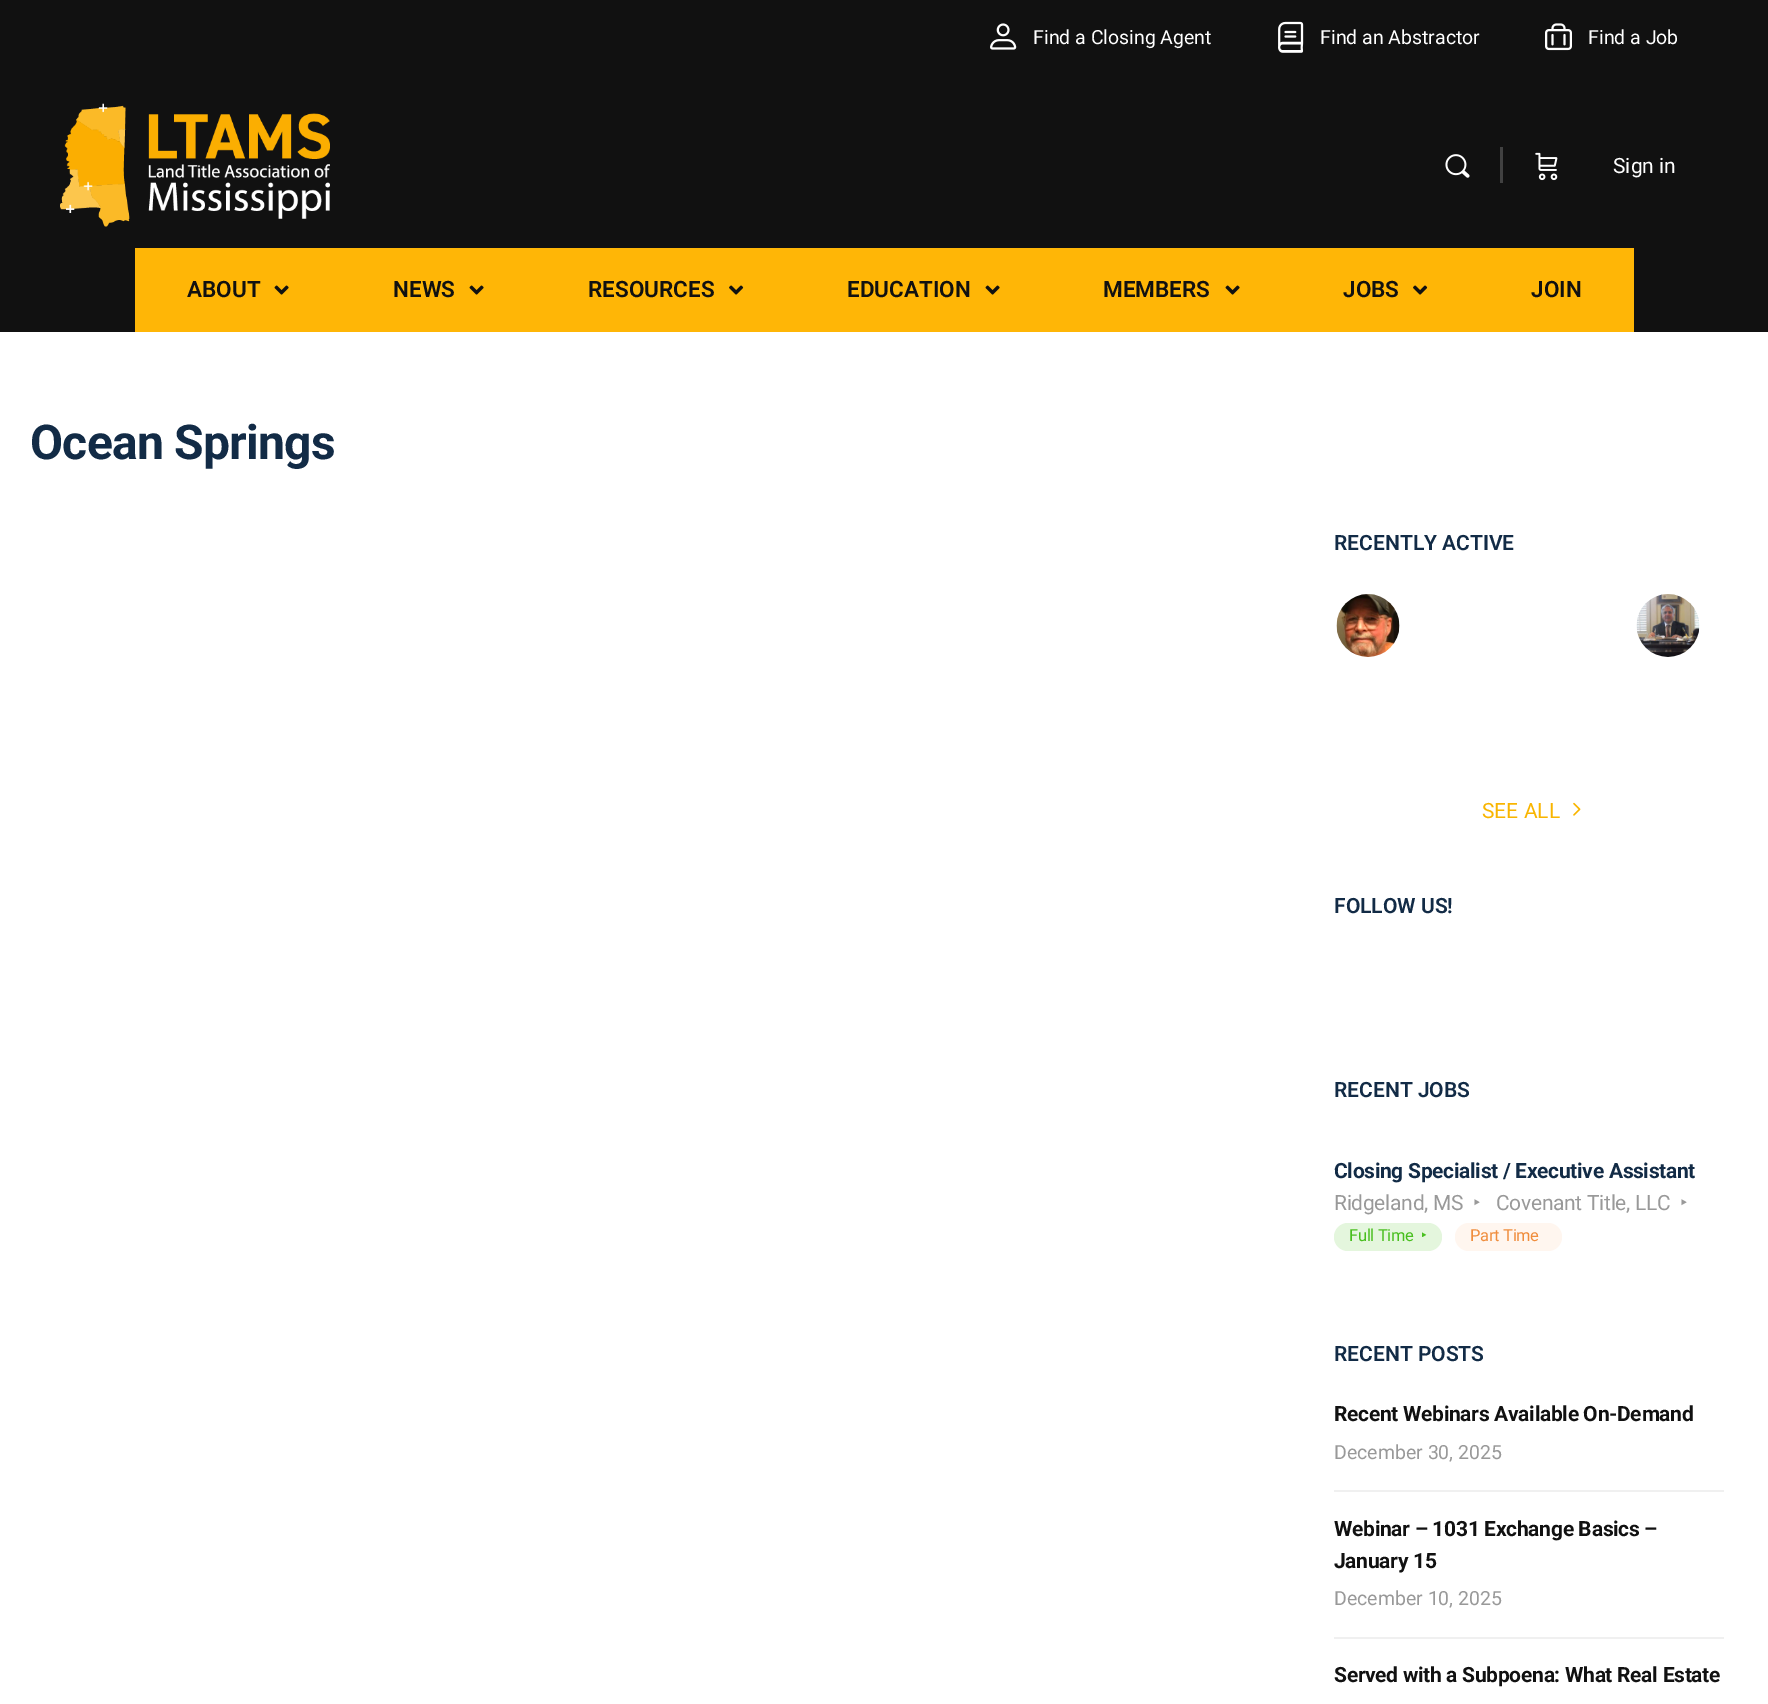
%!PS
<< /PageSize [1768 1704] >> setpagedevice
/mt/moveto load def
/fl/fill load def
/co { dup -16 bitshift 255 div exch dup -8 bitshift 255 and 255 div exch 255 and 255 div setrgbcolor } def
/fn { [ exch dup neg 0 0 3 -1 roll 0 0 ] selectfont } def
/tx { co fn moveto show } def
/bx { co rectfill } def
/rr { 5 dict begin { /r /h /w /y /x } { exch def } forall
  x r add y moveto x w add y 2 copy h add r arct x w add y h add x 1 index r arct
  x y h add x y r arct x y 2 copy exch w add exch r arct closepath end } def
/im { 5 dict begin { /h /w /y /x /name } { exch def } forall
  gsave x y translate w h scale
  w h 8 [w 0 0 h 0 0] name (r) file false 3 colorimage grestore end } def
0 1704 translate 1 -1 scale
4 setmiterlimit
0 0 1768 1704 16#FFFFFF bx
0 0 1768 332 16#111111 bx
(media/1.raw) 990 23 27 27 im
(media/2.raw) 1278 21 26 32 im
(media/3.raw) 1545 23 27 28 im
(media/4.raw) 60 103 270 124 im
(media/5.raw) 1445 154 25 24 im
1500 147 3 36 16#414141 bx
(media/6.raw) 1535 152 23 29 im
135 248 1499 84 16#FFB606 bx
(media/7.raw) 274 285 15 10 im
(media/7.raw) 469 285 15 10 im
(media/8.raw) 729 285 15 10 im
(media/7.raw) 985 285 15 10 im
(media/7.raw) 1225 285 15 10 im
(media/8.raw) 1413 285 15 10 im
(media/9.raw) 1336 594 64 63 im
(media/10.raw) 1636 594 64 63 im
(media/11.raw) 1573 802 8 14 im
16#E4F6DD co
1334 1223 108 28 14 rr fl
16#FFF6EF co
1455 1223 107 28 14 rr fl
1334 1490 390 2 16#F0F0F0 bx
1334 1637 390 2 16#F0F0F0 bx
(Find a Closing Agent) 1033 44 /Roboto-Regular 19.5 16#FFFFFF tx
(Find an Abstractor) 1320 44 /Roboto-Regular 19.5 16#FFFFFF tx
(Find a Job) 1588 44 /Roboto-Regular 19.5 16#FFFFFF tx
(Sign in) 1613 173 /Roboto-Regular 21 16#FFFFFF tx
(ABOUT) 187 297 /Roboto-SemiBold 22.5 16#111111 tx
(NEWS) 393 297 /Roboto-SemiBold 22.5 16#111111 tx
(RESOURCES) 588 297 /Roboto-SemiBold 22.5 16#111111 tx
(EDUCATION) 847 297 /Roboto-SemiBold 22.5 16#111111 tx
(MEMBERS) 1103 297 /Roboto-SemiBold 22.5 16#111111 tx
(JOBS) 1343 297 /Roboto-SemiBold 22.5 16#111111 tx
(JOIN) 1531 297 /Roboto-SemiBold 22.5 16#111111 tx
/Roboto-Bold 48 fn
16#122B46 co
30 459 mt -.75 0 (Ocean Springs) ashow
(RECENTLY ACTIVE) 1334 550 /Roboto-SemiBold 21 16#122B46 tx
(SEE ALL) 1482 818 /Roboto-Regular 21 16#F9B500 tx
(FOLLOW US!) 1334 913 /Roboto-SemiBold 21 16#122B46 tx
(RECENT JOBS) 1334 1097 /Roboto-SemiBold 21 16#122B46 tx
/Roboto-Bold 21 fn
1334 1178 mt -.3 0 (Closing Specialist / Executive Assistant) ashow
/Roboto-Regular 21 fn
16#999999 co
1334 1210 mt -.3 0 (Ridgeland, MS) ashow
/NotoSans-Regular 21 fn
1473 1210 mt -.3 0 (‣) ashow
/Roboto-Regular 21 fn
1496 1210 mt -.3 0 (Covenant Title, LLC) ashow
/NotoSans-Regular 21 fn
1680 1210 mt -.3 0 (‣) ashow
/Roboto-Regular 16.5 fn
16#48BF1E co
1349 1241 mt -.3 0 (Full Time) ashow
/NotoSans-Regular 16.5 fn
1421 1241 mt -.3 0 (‣) ashow
/Roboto-Regular 16.5 fn
16#F08D3C co
1470 1241 mt -.3 0 (Part Time) ashow
(RECENT POSTS) 1334 1361 /Roboto-SemiBold 21 16#122B46 tx
/Roboto-Bold 21 fn
16#111111 co
1334 1421 mt -.3 0 (Recent Webinars Available On-Demand) ashow
(December 30, 2025) 1334 1459 /Roboto-Regular 19.5 16#999999 tx
/Roboto-Bold 21 fn
16#111111 co
1334 1536 mt -.3 0 (Webinar – 1031 Exchange Basics –) ashow
1334 1568 mt -.3 0 (January 15) ashow
(December 10, 2025) 1334 1605 /Roboto-Regular 19.5 16#999999 tx
/Roboto-Bold 21 fn
16#111111 co
1334 1682 mt -.3 0 (Served with a Subpoena: What Real Estate) ashow
showpage
